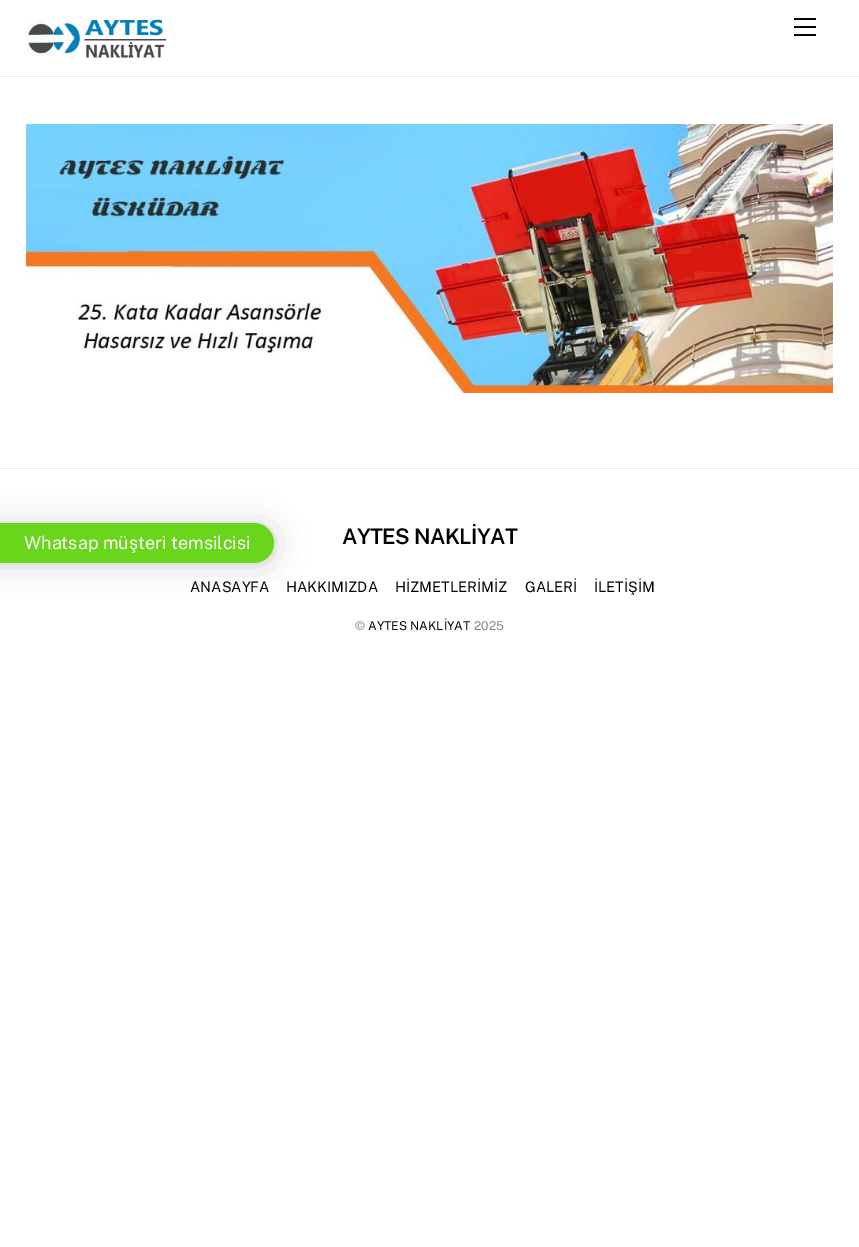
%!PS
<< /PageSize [859 1247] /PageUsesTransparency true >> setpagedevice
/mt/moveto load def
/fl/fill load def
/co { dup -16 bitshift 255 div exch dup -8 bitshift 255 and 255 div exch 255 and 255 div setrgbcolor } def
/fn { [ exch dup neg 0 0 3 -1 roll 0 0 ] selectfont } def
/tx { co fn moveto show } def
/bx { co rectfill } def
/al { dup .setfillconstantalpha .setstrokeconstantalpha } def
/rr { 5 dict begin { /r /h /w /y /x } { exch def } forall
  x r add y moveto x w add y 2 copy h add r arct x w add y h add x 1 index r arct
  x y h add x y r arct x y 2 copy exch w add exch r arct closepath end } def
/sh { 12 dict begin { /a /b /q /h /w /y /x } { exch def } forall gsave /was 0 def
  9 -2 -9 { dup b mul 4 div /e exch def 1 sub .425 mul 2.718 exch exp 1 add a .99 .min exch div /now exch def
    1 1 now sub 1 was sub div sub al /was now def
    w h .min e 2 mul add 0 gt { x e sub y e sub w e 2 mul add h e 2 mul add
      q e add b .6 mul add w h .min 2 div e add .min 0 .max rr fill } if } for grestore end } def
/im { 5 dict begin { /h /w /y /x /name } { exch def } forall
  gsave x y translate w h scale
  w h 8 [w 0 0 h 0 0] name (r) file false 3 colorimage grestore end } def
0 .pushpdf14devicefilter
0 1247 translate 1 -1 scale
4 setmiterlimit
0 0 859 1247 16#FFFFFF bx
16#000000 co
-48 525 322 40 20 16 .16 sh
-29 524 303 40 20 3 .06 sh
16#69D61B co
-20 523 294 40 20 rr fl
0 76 859 1 16#F2F2F2 bx
(media/1.raw) 26 18 140 40 im
794 34 22 2 16#000000 bx
794 18 22 2 16#000000 bx
794 26 22 2 16#000000 bx
(media/2.raw) 26 124 807 269 im
0 468 859 1 16#F2F2F2 bx
(Whatsap müşteri temsilcisi) 24 549 /PublicSans-Regular 18 16#FFFFFF tx
/PublicSans-SemiBold 21.5 fn
16#000000 co
342 544 mt -.6 0 (AYTES NAKLİYAT) ashow
(ANASAYFA) 190 592 /PublicSans-Regular 14.5 16#000000 tx
(HAKKIMIZDA) 286 592 /PublicSans-Regular 14.5 16#000000 tx
(HİZMETLERİMİZ) 395 592 /PublicSans-Regular 14.5 16#000000 tx
(GALERİ) 525 592 /PublicSans-Regular 14.5 16#000000 tx
(İLETİŞİM) 594 592 /PublicSans-Regular 14.5 16#000000 tx
(©) 355 630 /PublicSans-Regular 12.25 16#858585 tx
(AYTES NAKLİYAT) 368 630 /PublicSans-Regular 12.25 16#000000 tx
(2025) 474 630 /PublicSans-Regular 12.25 16#858585 tx
.poppdf14devicefilter showpage
